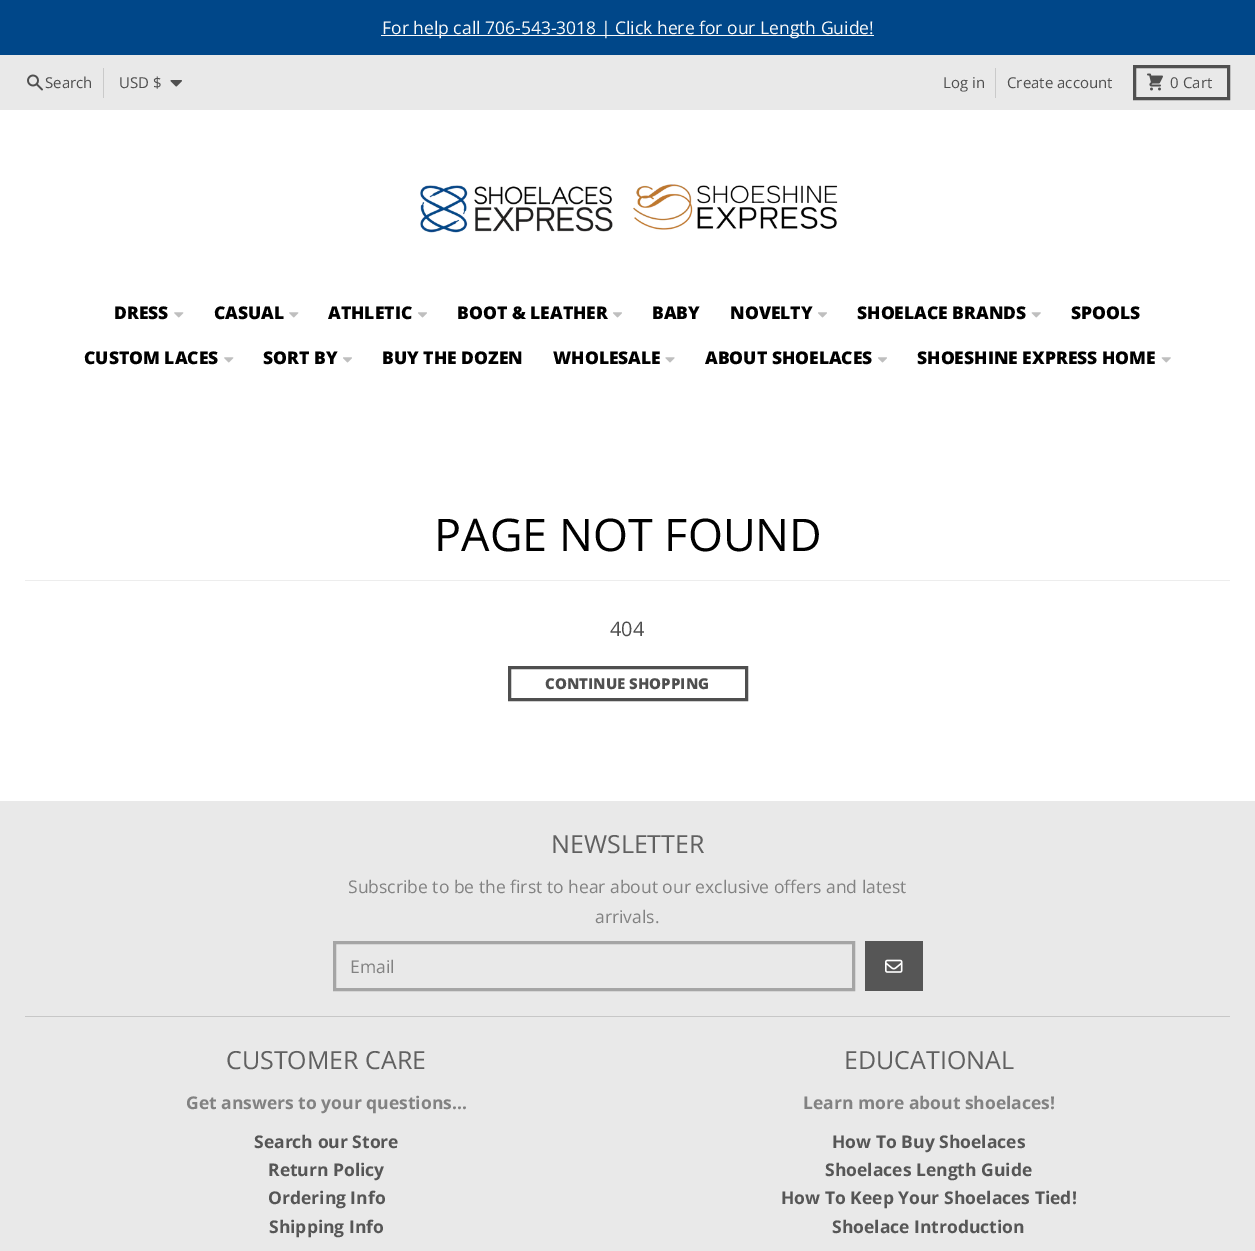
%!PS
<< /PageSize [1255 1251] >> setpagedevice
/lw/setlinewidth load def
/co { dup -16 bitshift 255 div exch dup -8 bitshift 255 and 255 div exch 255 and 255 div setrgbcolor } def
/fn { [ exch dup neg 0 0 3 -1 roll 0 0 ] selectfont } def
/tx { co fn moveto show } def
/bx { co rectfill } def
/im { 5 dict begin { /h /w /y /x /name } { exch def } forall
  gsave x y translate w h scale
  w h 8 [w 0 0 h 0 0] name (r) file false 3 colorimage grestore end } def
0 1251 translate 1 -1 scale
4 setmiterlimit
0 0 1255 1251 16#E9E9E9 bx
0 0 1255 55 16#004789 bx
381 35 493 1 16#FAFAFA bx
(media/1.raw) 27 74 16 17 im
103 68 1 30 16#CACACA bx
(media/2.raw) 170 80 12 7 im
995 68 1 30 16#CACACA bx
16#505050 co
3 lw
1134.5 66.5 94 32 rectstroke
(media/3.raw) 1147 73 16 18 im
0 110 1255 691 16#FFFFFF bx
(media/4.raw) 420 184 418 49 im
(media/5.raw) 174 312 10 6 im
(media/5.raw) 289 312 10 6 im
(media/6.raw) 418 312 9 6 im
(media/6.raw) 613 312 9 6 im
(media/6.raw) 818 312 9 6 im
(media/7.raw) 1031 312 10 6 im
(media/5.raw) 224 357 10 6 im
(media/6.raw) 343 357 9 6 im
(media/8.raw) 665 357 10 6 im
(media/6.raw) 878 357 9 6 im
(media/7.raw) 1161 357 10 6 im
25 580 1205 1 16#EDEDED bx
16#4F4F4F co
509.5 667.5 237 32 rectstroke
16#A5A5A5 co
334.5 942.5 519 47 rectstroke
865 941 58 50 16#565656 bx
(media/9.raw) 885 959 18 14 im
25 1016 1205 1 16#C7C7C7 bx
(For help call 706-543-3018 | Click here for our Length Guide!) 382 34 /OpenSans-Regular 17.5 16#FAFAFA tx
(Search) 45 88 /OpenSans-Regular 15 16#4F4F4F tx
(USD $) 119 88 /OpenSans-Regular 15 16#4F4F4F tx
(Log in) 943 88 /OpenSans-Regular 15 16#4F4F4F tx
(Create account) 1007 88 /OpenSans-Regular 15 16#4F4F4F tx
(0) 1170 88 /OpenSans-Regular 15 16#4F4F4F tx
(Cart) 1183 88 /OpenSans-Regular 15 16#4F4F4F tx
(DRESS) 114 319 /OpenSans-ExtraBold 17.5 16#000000 tx
(CASUAL) 214 319 /OpenSans-ExtraBold 17.5 16#000000 tx
(ATHLETIC) 328 319 /OpenSans-ExtraBold 17.5 16#000000 tx
(BOOT & LEATHER) 457 319 /OpenSans-ExtraBold 17.5 16#000000 tx
(BABY) 652 319 /OpenSans-ExtraBold 17.5 16#000000 tx
(NOVELTY) 730 319 /OpenSans-ExtraBold 17.5 16#000000 tx
(SHOELACE BRANDS) 857 319 /OpenSans-ExtraBold 17.5 16#000000 tx
(SPOOLS) 1071 319 /OpenSans-ExtraBold 17.5 16#000000 tx
(CUSTOM LACES) 84 364 /OpenSans-ExtraBold 17.5 16#000000 tx
(SORT BY) 263 364 /OpenSans-ExtraBold 17.5 16#000000 tx
(BUY THE DOZEN) 382 364 /OpenSans-ExtraBold 17.5 16#000000 tx
(WHOLESALE) 553 364 /OpenSans-ExtraBold 17.5 16#000000 tx
(ABOUT SHOELACES) 705 364 /OpenSans-ExtraBold 17.5 16#000000 tx
(SHOESHINE EXPRESS HOME) 917 364 /OpenSans-ExtraBold 17.5 16#000000 tx
(PAGE NOT FOUND) 434 551 /OpenSans-Regular 45 16#000000 tx
(404) 610 636 /OpenSans-Regular 20 16#4F4F4F tx
(CONTINUE SHOPPING) 545 689 /OpenSans-ExtraBold 15 16#4F4F4F tx
(NEWSLETTER) 551 853 /OpenSans-Regular 25 16#606060 tx
(Subscribe to be the first to hear about our exclusive offers and latest) 348 893 /OpenSans-Regular 17.5 16#828282 tx
(arrivals.) 595 923 /OpenSans-Regular 17.5 16#828282 tx
(Email) 350 973 /OpenSans-Regular 17.5 16#828282 tx
(CUSTOMER CARE) 226 1069 /OpenSans-Regular 25 16#606060 tx
(Get answers to your questions...) 186 1109 /OpenSans-Bold 17.5 16#828282 tx
(Search our Store) 254 1148 /OpenSans-Bold 17.5 16#565656 tx
(Return Policy) 268 1176 /OpenSans-Bold 17.5 16#565656 tx
(Ordering Info) 268 1204 /OpenSans-Bold 17.5 16#565656 tx
(Shipping Info) 269 1233 /OpenSans-Bold 17.5 16#565656 tx
(EDUCATIONAL) 844 1069 /OpenSans-Regular 25 16#606060 tx
(Learn more about shoelaces!) 803 1109 /OpenSans-Bold 17.5 16#828282 tx
(How To Buy Shoelaces) 832 1148 /OpenSans-Bold 17.5 16#565656 tx
(Shoelaces Length Guide) 825 1176 /OpenSans-Bold 17.5 16#565656 tx
(How To Keep Your Shoelaces Tied!) 781 1204 /OpenSans-Bold 17.5 16#565656 tx
(Shoelace Introduction) 832 1233 /OpenSans-Bold 17.5 16#565656 tx
showpage
